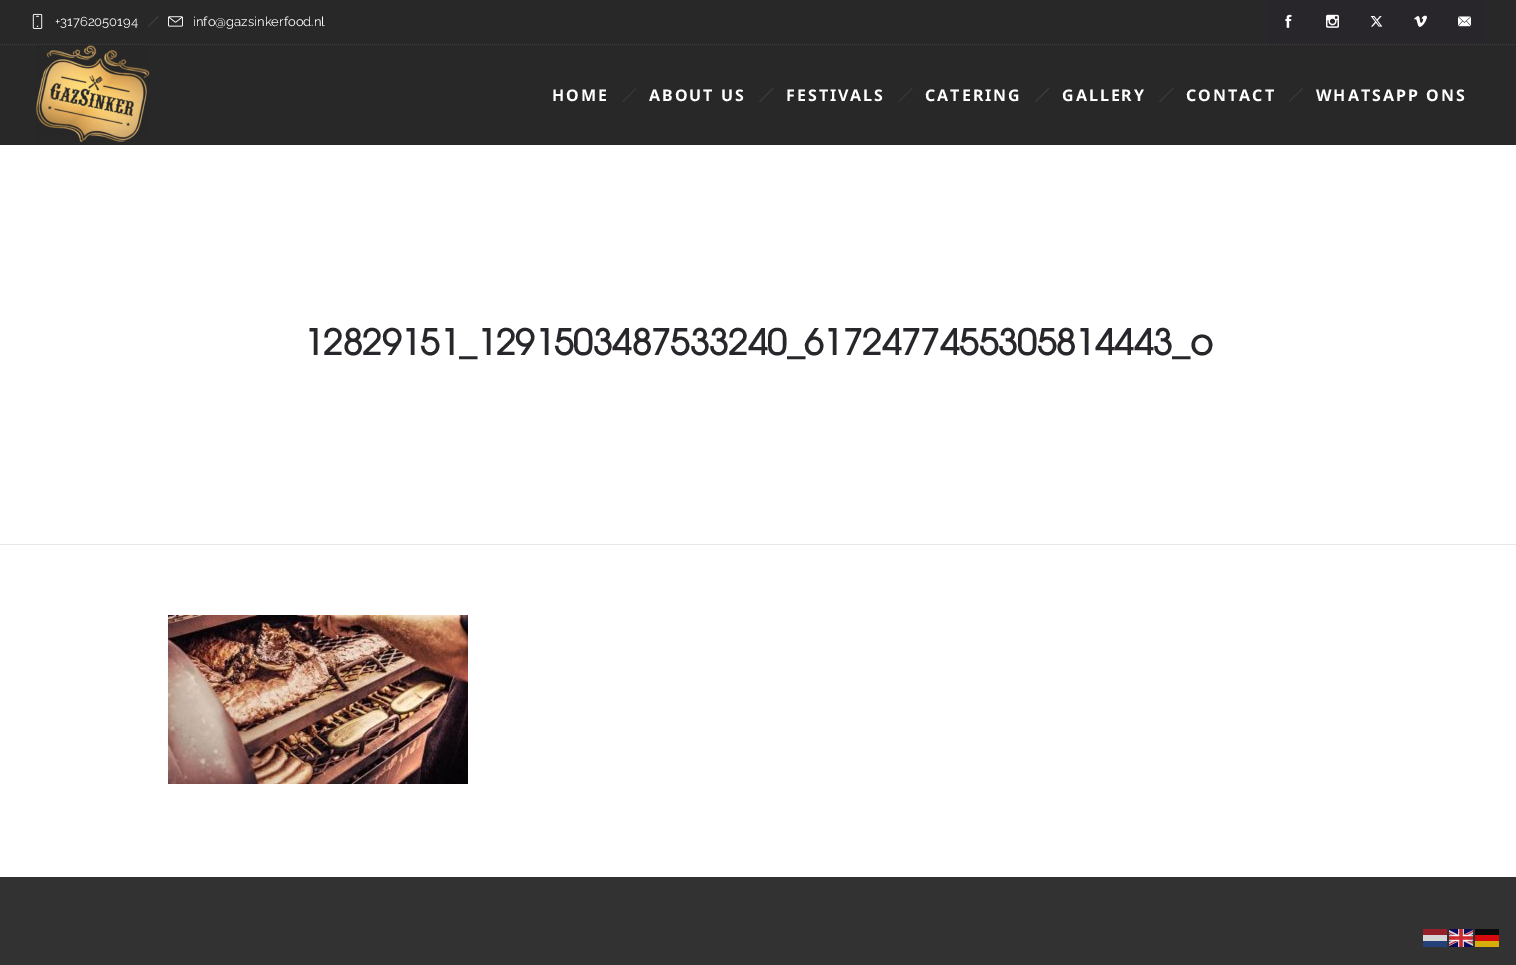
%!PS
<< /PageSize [1516 965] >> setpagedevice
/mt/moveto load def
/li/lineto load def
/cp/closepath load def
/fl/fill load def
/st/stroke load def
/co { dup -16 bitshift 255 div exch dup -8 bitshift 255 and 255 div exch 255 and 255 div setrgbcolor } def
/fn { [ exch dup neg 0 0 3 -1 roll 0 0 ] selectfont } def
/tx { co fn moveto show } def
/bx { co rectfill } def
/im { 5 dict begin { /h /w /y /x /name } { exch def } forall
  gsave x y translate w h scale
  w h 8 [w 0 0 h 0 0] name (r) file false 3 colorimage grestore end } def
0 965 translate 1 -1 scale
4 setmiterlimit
0 0 1516 965 16#FFFFFF bx
0 0 1516 145 16#282828 bx
16#3E3E3E co
[1 1] 0 setdash
0 44.5 mt 1516 44.5 li st
(media/1.raw) 32 13 11 16 im
158 16 mt 158.5 17 li 148.5 27 li 148 26 li cp fl
(media/2.raw) 168 16 15 11 im
1266 0 220 44 16#28262B bx
(media/3.raw) 1285 14 7 14 im
(media/4.raw) 1326 14 13 14 im
(media/5.raw) 1370 16 13 11 im
(media/6.raw) 1414 15 13 12 im
(media/7.raw) 1458 16 13 11 im
(media/8.raw) 36 45 114 97 im
16#3E3E3E co
636 88 mt 636.5 88.5 li 623 102 li 622.5 101.5 li cp fl
772.5 88 mt 773.5 88.5 li 760 102 li 759 101.5 li cp fl
912 88 mt 912.5 88.5 li 899 102 li 898.5 101.5 li cp fl
1048.5 88 mt 1049.5 88.5 li 1036 102 li 1035 101.5 li cp fl
1173 88 mt 1173.5 88.5 li 1160 102 li 1159 101.5 li cp fl
1302.5 88 mt 1303 88.5 li 1289.5 102 li 1289 101.5 li cp fl
0 544 1516 1 16#E8E8E8 bx
(media/9.raw) 168 615 300 169 im
0 877 1516 88 16#323232 bx
1423 929 24 6 16#95202A bx
(media/10.raw) 1449 929 24 18 im
1475 929 24 6 16#0A0A0A bx
1423 935 24 6 16#D6D6D6 bx
1475 935 24 6 16#D60A0A bx
1423 941 24 6 16#244279 bx
1475 941 24 6 16#D6AD0A bx
(+31762050194) 55 26 /Raleway-Regular 13 16#FFFFFF tx
(info@gazsinkerfood.nl) 193 26 /Raleway-Regular 13 16#FFFFFF tx
/NotoSans-Bold 16 fn
552 101 mt 2 0 (HOME) ashow
649 101 mt 2 0 (ABOUT US) ashow
786 101 mt 2 0 (FESTIVALS) ashow
925 101 mt 2 0 (CATERING) ashow
1062 101 mt 2 0 (GALLERY) ashow
1186 101 mt 2 0 (CONTACT) ashow
1316 101 mt 2 0 (WHATSAPP ONS) ashow
(12829151_1291503487533240_6172477455305814443_o) 304 355 /TeXGyreAdventor-Bold 35 16#28262B tx
showpage
